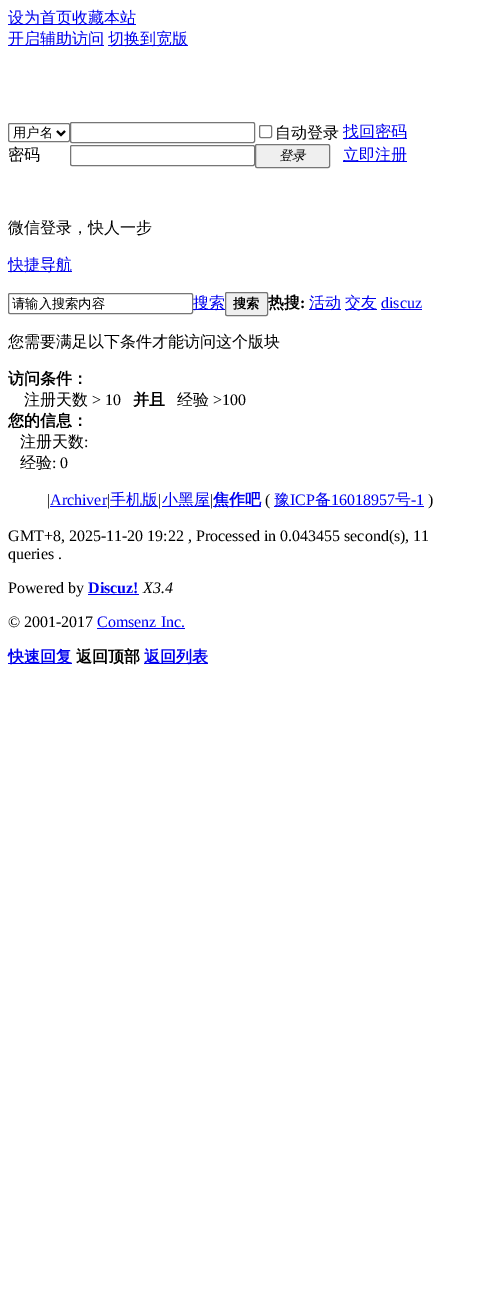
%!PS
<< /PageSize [485 1311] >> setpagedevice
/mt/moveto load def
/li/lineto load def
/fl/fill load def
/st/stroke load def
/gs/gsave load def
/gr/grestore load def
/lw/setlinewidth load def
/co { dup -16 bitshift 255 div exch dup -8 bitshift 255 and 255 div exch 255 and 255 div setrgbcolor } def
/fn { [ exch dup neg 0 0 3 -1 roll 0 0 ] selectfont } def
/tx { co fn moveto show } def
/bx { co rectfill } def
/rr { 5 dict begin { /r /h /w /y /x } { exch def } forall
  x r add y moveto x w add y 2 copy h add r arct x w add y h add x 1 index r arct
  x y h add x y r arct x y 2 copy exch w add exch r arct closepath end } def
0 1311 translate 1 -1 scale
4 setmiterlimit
0 0 485 1311 16#FFFFFF bx
8 24 128 1 16#0000EE bx
8 45 96 1 16#0000EE bx
108 45 80 1 16#0000EE bx
16#767676 co
8.5 123.5 61 18 1.5 rr st
16#000000 co
2 lw
57 131 mt 61 135 li 65 131 li st
16#767676 co
1 lw
70.5 122.5 184 20 1.5 rr st
259.5 125.5 12 12 1.5 rr st
343 138 64 1 16#0000EE bx
16#767676 co
70.5 145.5 184 20 1.5 rr st
16#EFEFEF co
255.5 144.5 74 23 1.5 rr gs fl gr
16#767676 co
st
343 161 64 1 16#0000EE bx
8 271 64 1 16#0000EE bx
16#767676 co
8.5 293.5 184 20 1.5 rr st
193 309 32 1 16#0000EE bx
16#EFEFEF co
225.5 292.5 42 23 1.5 rr gs fl gr
16#767676 co
st
309 309 32 1 16#0000EE bx
345 309 32 1 16#0000EE bx
381 309 41 1 16#0000EE bx
50 506 57 1 16#0000EE bx
110 506 48 1 16#0000EE bx
162 506 48 1 16#0000EE bx
213 506 48 1 16#0000EE bx
274 506 150 1 16#0000EE bx
88 594 51 1 16#0000EE bx
97 628 88 1 16#0000EE bx
8 663 64 1 16#0000EE bx
144 663 64 1 16#0000EE bx
(设为首页收藏本站) 8 23 /WenQuanYiZenHei-Medium 16 16#0000EE tx
(开启辅助访问) 8 44 /WenQuanYiZenHei-Medium 16 16#0000EE tx
(切换到宽版) 108 44 /WenQuanYiZenHei-Medium 16 16#0000EE tx
(用户名) 13 137 /WenQuanYiZenHei-Medium 13.25 16#000000 tx
(自动登录) 275 138 /WenQuanYiZenHei-Medium 16 16#000000 tx
(找回密码) 343 137 /WenQuanYiZenHei-Medium 16 16#0000EE tx
(密码) 8 160 /WenQuanYiZenHei-Medium 16 16#000000 tx
(登录) 279 160 /WenQuanYiZenHei-MediumItalic 13.25 16#000000 tx
(立即注册) 343 160 /WenQuanYiZenHei-Medium 16 16#0000EE tx
(微信登录，快人一步) 8 233 /WenQuanYiZenHei-Medium 16 16#000000 tx
(快捷导航) 8 270 /WenQuanYiZenHei-Medium 16 16#0000EE tx
(请输入搜索内容) 12 308 /WenQuanYiZenHei-Medium 13.25 16#000000 tx
(搜索) 193 308 /WenQuanYiZenHei-Medium 16 16#0000EE tx
(搜索) 233 308 /WenQuanYiZenHei-Bold 13.25 16#000000 tx
(热搜) 268 308 /WenQuanYiZenHei-Bold 16 16#000000 tx
(:) 300 308 /LiberationSerif-Bold 16 16#000000 tx
(活动) 309 308 /WenQuanYiZenHei-Medium 16 16#0000EE tx
(交友) 345 308 /WenQuanYiZenHei-Medium 16 16#0000EE tx
(discuz) 381 308 /LiberationSerif-Regular 16 16#0000EE tx
(您需要满足以下条件才能访问这个版块) 8 347 /WenQuanYiZenHei-Medium 16 16#000000 tx
(访问条件：) 8 384 /WenQuanYiZenHei-Bold 16 16#000000 tx
(注册天数) 24 405 /WenQuanYiZenHei-Medium 16 16#000000 tx
(> 10) 92 405 /LiberationSerif-Regular 16 16#000000 tx
(并且) 133 405 /WenQuanYiZenHei-Bold 16 16#000000 tx
(经验) 177 405 /WenQuanYiZenHei-Medium 16 16#000000 tx
(>100) 213 405 /LiberationSerif-Regular 16 16#000000 tx
(您的信息：) 8 426 /WenQuanYiZenHei-Bold 16 16#000000 tx
(注册天数) 20 447 /WenQuanYiZenHei-Medium 16 16#000000 tx
(:) 84 447 /LiberationSerif-Regular 16 16#000000 tx
(经验) 20 468 /WenQuanYiZenHei-Medium 16 16#000000 tx
(: 0) 52 468 /LiberationSerif-Regular 16 16#000000 tx
(|) 47 505 /LiberationSerif-Regular 16 16#000000 tx
(Archiver) 50 505 /LiberationSerif-Regular 16 16#0000EE tx
(|) 107 505 /LiberationSerif-Regular 16 16#000000 tx
(手机版) 110 505 /WenQuanYiZenHei-Medium 16 16#0000EE tx
(|) 158 505 /LiberationSerif-Regular 16 16#000000 tx
(小黑屋) 162 505 /WenQuanYiZenHei-Medium 16 16#0000EE tx
(|) 210 505 /LiberationSerif-Regular 16 16#000000 tx
(焦作吧) 213 505 /WenQuanYiZenHei-Bold 16 16#0000EE tx
(\() 265 505 /LiberationSerif-Regular 16 16#000000 tx
(豫) 274 505 /WenQuanYiZenHei-Medium 16 16#0000EE tx
(ICP) 290 505 /LiberationSerif-Regular 16 16#0000EE tx
(备) 315 505 /WenQuanYiZenHei-Medium 16 16#0000EE tx
(16018957) 331 505 /LiberationSerif-Regular 16 16#0000EE tx
(号) 395 505 /WenQuanYiZenHei-Medium 16 16#0000EE tx
(-1) 411 505 /LiberationSerif-Regular 16 16#0000EE tx
(\)) 428 505 /LiberationSerif-Regular 16 16#000000 tx
(GMT+8, 2025-11-20 19:22 , Processed in 0.043455 second\(s\), 11) 8 541 /LiberationSerif-Regular 16 16#000000 tx
(queries .) 8 559 /LiberationSerif-Regular 16 16#000000 tx
(Powered by) 8 593 /LiberationSerif-Regular 16 16#000000 tx
(Discuz!) 88 593 /LiberationSerif-Bold 16 16#0000EE tx
(X3.4) 143 593 /LiberationSerif-Italic 16 16#000000 tx
(© 2001-2017) 8 627 /LiberationSerif-Regular 16 16#000000 tx
(Comsenz Inc.) 97 627 /LiberationSerif-Regular 16 16#0000EE tx
(快速回复) 8 662 /WenQuanYiZenHei-Bold 16 16#0000EE tx
(返回顶部) 76 662 /WenQuanYiZenHei-Bold 16 16#000000 tx
(返回列表) 144 662 /WenQuanYiZenHei-Bold 16 16#0000EE tx
showpage
